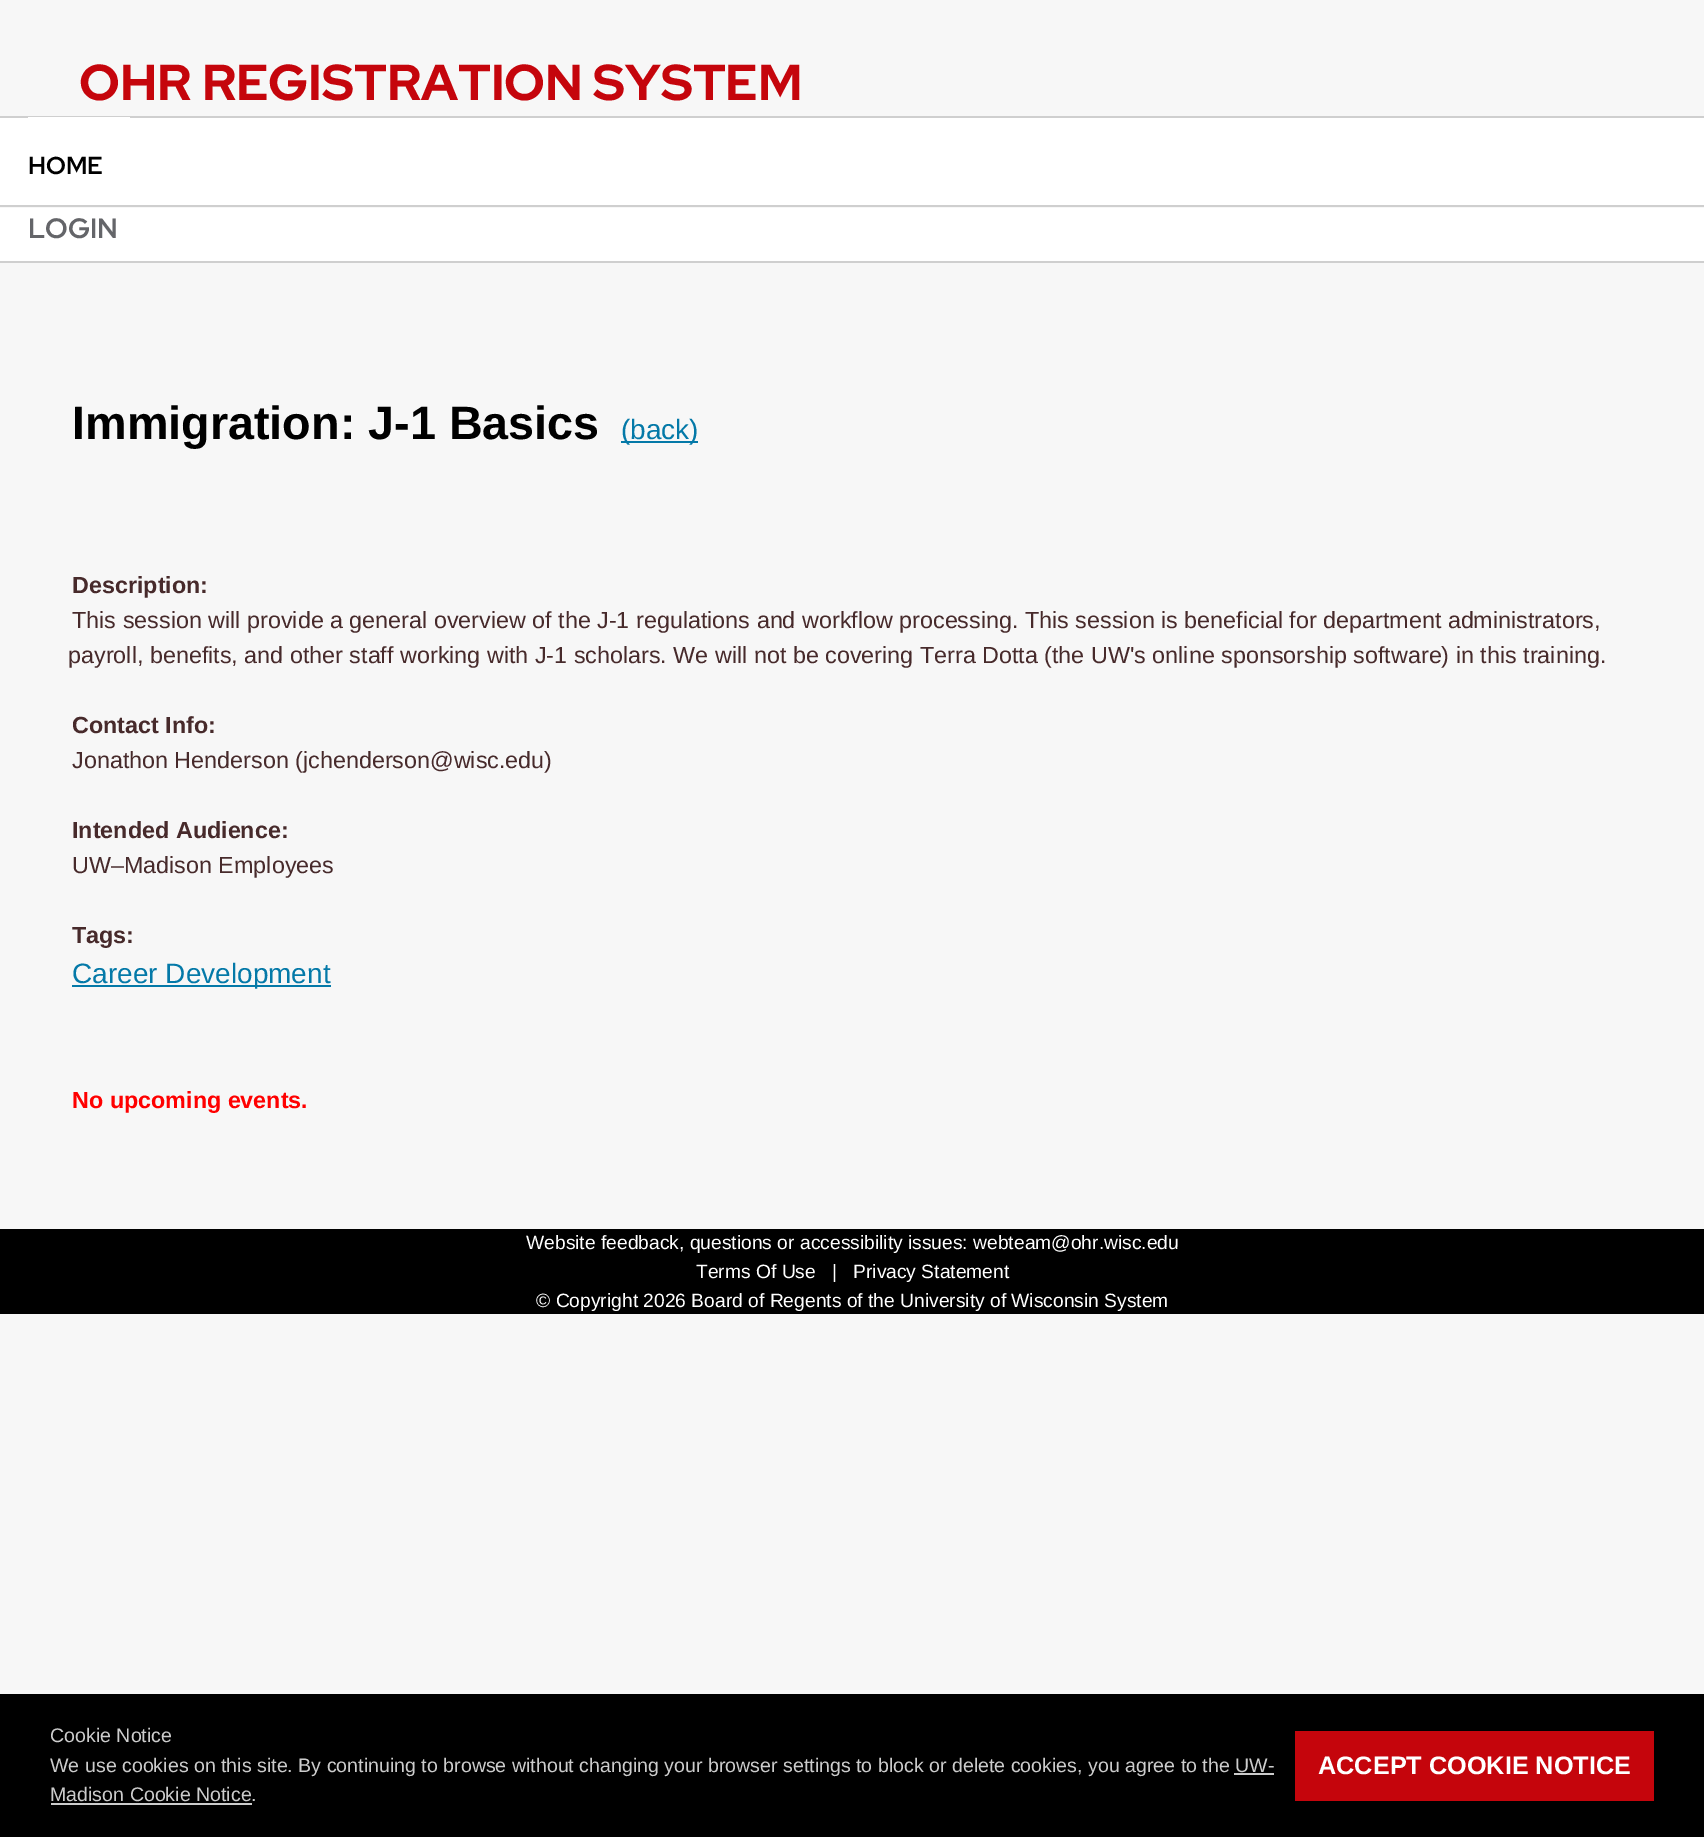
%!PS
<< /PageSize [1704 1837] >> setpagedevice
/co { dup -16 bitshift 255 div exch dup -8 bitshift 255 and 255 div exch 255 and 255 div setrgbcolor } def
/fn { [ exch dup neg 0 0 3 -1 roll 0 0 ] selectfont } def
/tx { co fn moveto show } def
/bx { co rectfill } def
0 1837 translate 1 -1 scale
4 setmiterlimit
0 0 1704 1837 16#F7F7F7 bx
0 118 1704 87 16#FFFFFF bx
0 116 1704 2 16#CFCFCF bx
0 205 1704 2 16#CFCFCF bx
28 117 102 1 16#FFFFFF bx
0 208 1704 53 16#FFFFFF bx
0 261 1704 2 16#CFCFCF bx
621 441 77 2 16#0479A8 bx
72 985 259 2 16#0479A8 bx
0 1229 1704 85 16#000000 bx
0 1694 1704 143 16#000000 bx
1234 1773 40 2 16#CCCCCC bx
51 1803 201 2 16#CCCCCC bx
1295 1731 359 70 16#C5050C bx
(OHR REGISTRATION SYSTEM) 79 100 /RedHatDisplay-ExtraBold 50.4 16#C5050C tx
(HOME) 28 174 /RedHatDisplay-Bold 24.5 16#000000 tx
(LOGIN) 28 238 /RedHatDisplay-Bold 28 16#646569 tx
(Immigration: J-1 Basics) 72 439 /LiberationSans-Bold 46.75 16#000000 tx
(\(back\)) 621 439 /LiberationSans-Regular 28 16#0479A8 tx
(Description:) 72 593 /LiberationSans-Bold 23.33 16#472A2B tx
(This session will provide a general overview of the J-1 regulations and workflow processing. This session is beneficial for department administrators,) 72 628 /LiberationSans-Regular 23.33 16#472A2B tx
(payroll, benefits, and other staff working with J-1 scholars. We will not be covering Terra Dotta \(the UW's online sponsorship software\) in this training.) 68 663 /LiberationSans-Regular 23.33 16#472A2B tx
(Contact Info:) 72 733 /LiberationSans-Bold 23.33 16#472A2B tx
(Jonathon Henderson \(jchenderson@wisc.edu\)) 72 768 /LiberationSans-Regular 23.33 16#472A2B tx
(Intended Audience:) 72 838 /LiberationSans-Bold 23.33 16#472A2B tx
(UW–Madison Employees) 72 873 /LiberationSans-Regular 23.33 16#472A2B tx
(Tags:) 72 943 /LiberationSans-Bold 23.33 16#472A2B tx
(Career Development) 72 983 /LiberationSans-Regular 28 16#0479A8 tx
(No upcoming events.) 72 1108 /LiberationSans-Bold 23.33 16#FF0000 tx
(Website feedback, questions or accessibility issues: webteam@ohr.wisc.edu) 526 1249 /LiberationSans-Regular 19.25 16#FFFFFF tx
(Terms Of Use) 696 1278 /LiberationSans-Regular 19.25 16#FFFFFF tx
(|) 832 1278 /LiberationSans-Regular 19.25 16#FFFFFF tx
(Privacy Statement) 853 1278 /LiberationSans-Regular 19.25 16#FFFFFF tx
(© Copyright 2026 Board of Regents of the University of Wisconsin System) 536 1307 /LiberationSans-Regular 19.25 16#FFFFFF tx
(Cookie Notice) 50 1742 /LiberationSans-Regular 19.6 16#CCCCCC tx
(We use cookies on this site. By continuing to browse without changing your browser settings to block or delete cookies, you agree to the UW-) 50 1772 /LiberationSans-Regular 19.6 16#CCCCCC tx
(Madison Cookie Notice.) 50 1801 /LiberationSans-Regular 19.6 16#CCCCCC tx
(ACCEPT COOKIE NOTICE) 1318 1774 /LiberationSans-Bold 25.25 16#FFFFFF tx
showpage
